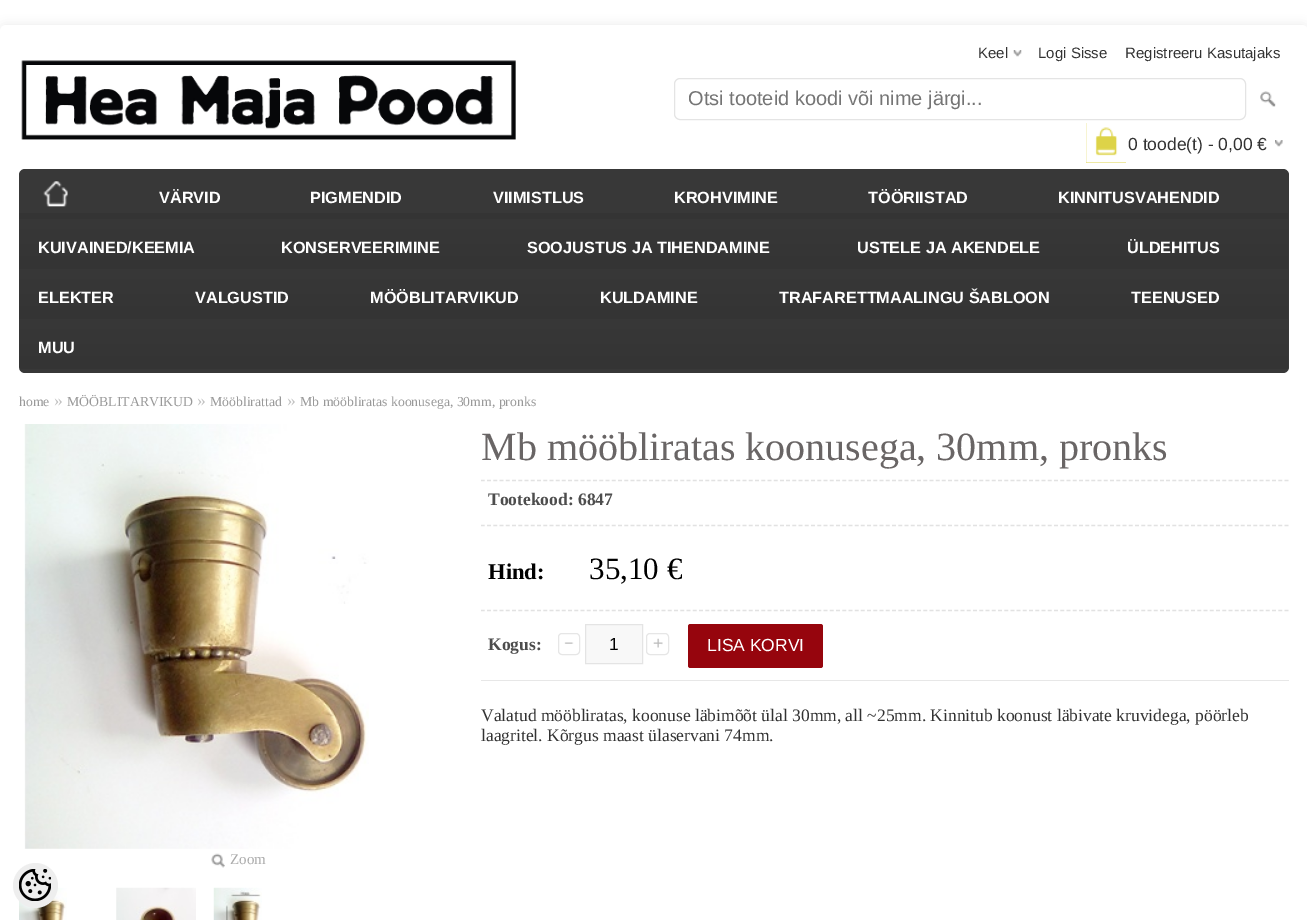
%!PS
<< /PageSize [1307 920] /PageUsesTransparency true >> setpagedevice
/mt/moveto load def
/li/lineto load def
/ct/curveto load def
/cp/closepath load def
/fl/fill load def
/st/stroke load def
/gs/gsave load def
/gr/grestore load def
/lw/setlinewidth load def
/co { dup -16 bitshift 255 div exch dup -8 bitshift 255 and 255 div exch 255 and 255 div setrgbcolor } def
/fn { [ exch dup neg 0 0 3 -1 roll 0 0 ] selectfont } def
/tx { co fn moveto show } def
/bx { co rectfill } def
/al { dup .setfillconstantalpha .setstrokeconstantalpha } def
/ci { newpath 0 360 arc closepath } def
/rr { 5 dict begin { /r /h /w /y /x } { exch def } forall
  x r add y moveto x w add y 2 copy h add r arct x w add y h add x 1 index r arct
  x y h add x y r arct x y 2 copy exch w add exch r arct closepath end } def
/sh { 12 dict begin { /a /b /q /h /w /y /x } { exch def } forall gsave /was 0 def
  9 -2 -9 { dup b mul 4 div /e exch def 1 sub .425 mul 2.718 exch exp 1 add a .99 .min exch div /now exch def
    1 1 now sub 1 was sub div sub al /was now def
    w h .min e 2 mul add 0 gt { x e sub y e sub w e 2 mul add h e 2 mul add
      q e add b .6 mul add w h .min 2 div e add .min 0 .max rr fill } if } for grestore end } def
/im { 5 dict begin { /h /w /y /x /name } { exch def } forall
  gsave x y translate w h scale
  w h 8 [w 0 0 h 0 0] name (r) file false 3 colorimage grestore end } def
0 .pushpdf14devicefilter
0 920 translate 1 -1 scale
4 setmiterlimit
0 0 1307 920 16#FFFFFF bx
16#000000 co
0 25 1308 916 6 5 .08 sh
16#FFFFFF co
6 25 mt 1302 25 li 1305.5 25 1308 27.5 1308 31 ct 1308 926 li 0 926 li 0 31 li 0 27.5 2.5 25 6 25 ct cp fl
(media/1.raw) 1013 50 9 7 im
(media/2.raw) 21 60 495 80 im
16#E4E4E4 co
674.5 78.5 571 41 5.5 rr st
(media/3.raw) 1260 91 16 16 im
1086 123 40 40 16#DDD348 bx
(media/4.raw) 1086 123 40 40 im
(media/5.raw) 1275 140 8 7 im
16#383838 co
19 169 1270 204 6 rr fl
(media/6.raw) 19 213 1269 156 im
(media/7.raw) 43 181 25 26 im
16#E2E2E2 co
1.2 lw
[3.75 2.48] 0 setdash
481 480.5 mt 1289 480.5 li st
481 525.5 mt 1289 525.5 li st
481 610.5 mt 1289 610.5 li st
481 680 808 1 16#E7E7E7 bx
(media/8.raw) 564 642 10 2 im
16#E6E6E6 co
1 lw
[] 0 setdash
558.5 633.5 21 21 3.5 rr st
16#F8F8F8 co
585.5 624.5 mt 642.5 624.5 li 642.5 663.5 li 585.5 663.5 li cp gs fl gr
16#E4E4E4 co
st
(media/9.raw) 653 638 10 10 im
16#E6E6E6 co
646.5 633.5 22 21 3.5 rr st
16#96050D co
688 624 135 44 2.5 rr fl
(media/10.raw) 24 424 345 425 im
(media/11.raw) 211 853 14 15 im
(media/12.raw) 19 887 48 33 im
(media/13.raw) 116 887 80 33 im
(media/14.raw) 213 887 49 33 im
16#EEEEEE co
35.5 885.5 22.5 ci fl
(media/15.raw) 19 869 32 32 im
(Keel) 978 58 /LiberationSans-Regular 15 16#333333 tx
(Logi Sisse) 1038 58 /LiberationSans-Regular 15 16#333333 tx
(Registreeru Kasutajaks) 1125 58 /LiberationSans-Regular 15 16#333333 tx
(Otsi tooteid koodi või nime järgi...) 688 105 /LiberationSans-Regular 20 16#757575 tx
(0 toode\(t\) - 0,00 €) 1128 150 /LiberationSans-Regular 17.5 16#333333 tx
(VÄRVID) 159 203 /LiberationSans-Bold 16.25 16#FFFFFF tx
(PIGMENDID) 310 203 /LiberationSans-Bold 16.25 16#FFFFFF tx
(VIIMISTLUS) 493 203 /LiberationSans-Bold 16.25 16#FFFFFF tx
(KROHVIMINE) 674 203 /LiberationSans-Bold 16.25 16#FFFFFF tx
(TÖÖRIISTAD) 868 203 /LiberationSans-Bold 16.25 16#FFFFFF tx
(KINNITUSVAHENDID) 1058 203 /LiberationSans-Bold 16.25 16#FFFFFF tx
(KUIVAINED/KEEMIA) 38 253 /LiberationSans-Bold 16.25 16#FFFFFF tx
(KONSERVEERIMINE) 281 253 /LiberationSans-Bold 16.25 16#FFFFFF tx
(SOOJUSTUS JA TIHENDAMINE) 527 253 /LiberationSans-Bold 16.25 16#FFFFFF tx
(USTELE JA AKENDELE) 857 253 /LiberationSans-Bold 16.25 16#FFFFFF tx
(ÜLDEHITUS) 1127 253 /LiberationSans-Bold 16.25 16#FFFFFF tx
(ELEKTER) 38 303 /LiberationSans-Bold 16.25 16#FFFFFF tx
(VALGUSTID) 195 303 /LiberationSans-Bold 16.25 16#FFFFFF tx
(MÖÖBLITARVIKUD) 370 303 /LiberationSans-Bold 16.25 16#FFFFFF tx
(KULDAMINE) 600 303 /LiberationSans-Bold 16.25 16#FFFFFF tx
(TRAFARETTMAALINGU ŠABLOON) 779 303 /LiberationSans-Bold 16.25 16#FFFFFF tx
(TEENUSED) 1131 303 /LiberationSans-Bold 16.25 16#FFFFFF tx
(MUU) 38 353 /LiberationSans-Bold 16.25 16#FFFFFF tx
(home) 19 406 /LiberationSerif-Regular 13.75 16#999999 tx
(») 54 406 /LiberationSerif-Regular 17.5 16#C2C2C2 tx
(MÖÖBLITARVIKUD) 67 406 /LiberationSerif-Regular 13.75 16#999999 tx
(») 197 406 /LiberationSerif-Regular 17.5 16#C2C2C2 tx
(Mööblirattad) 210 406 /LiberationSerif-Regular 13.75 16#999999 tx
(») 287 406 /LiberationSerif-Regular 17.5 16#C2C2C2 tx
(Mb mööbliratas koonusega, 30mm, pronks) 300 406 /LiberationSerif-Regular 13.75 16#999999 tx
(Mb mööbliratas koonusega, 30mm, pronks) 481 460 /LiberationSerif-Regular 40 16#696565 tx
(Tootekood: 6847) 488 505 /LiberationSerif-Bold 17.5 16#4D4D4D tx
(Hind:) 488 579 /LiberationSerif-Bold 22.5 16#000000 tx
(35,10 €) 589 579 /LiberationSerif-Regular 31 16#000000 tx
(Kogus:) 488 650 /LiberationSerif-Bold 17.5 16#4D4D4D tx
(1) 609 650 /LiberationSans-Regular 17.5 16#000000 tx
(LISA KORVI) 707 651 /LiberationSans-Regular 17.5 16#FFFFFF tx
(Valatud mööbliratas, koonuse läbimõõt ülal 30mm, all ~25mm. Kinnitub koonust läbivate kruvidega, pöörleb) 481 721 /LiberationSerif-Regular 17.5 16#333333 tx
(laagritel. Kõrgus maast ülaservani 74mm.) 481 741 /LiberationSerif-Regular 17.5 16#333333 tx
(Zoom) 230 864 /LiberationSerif-Regular 15 16#ABABAB tx
.poppdf14devicefilter showpage
